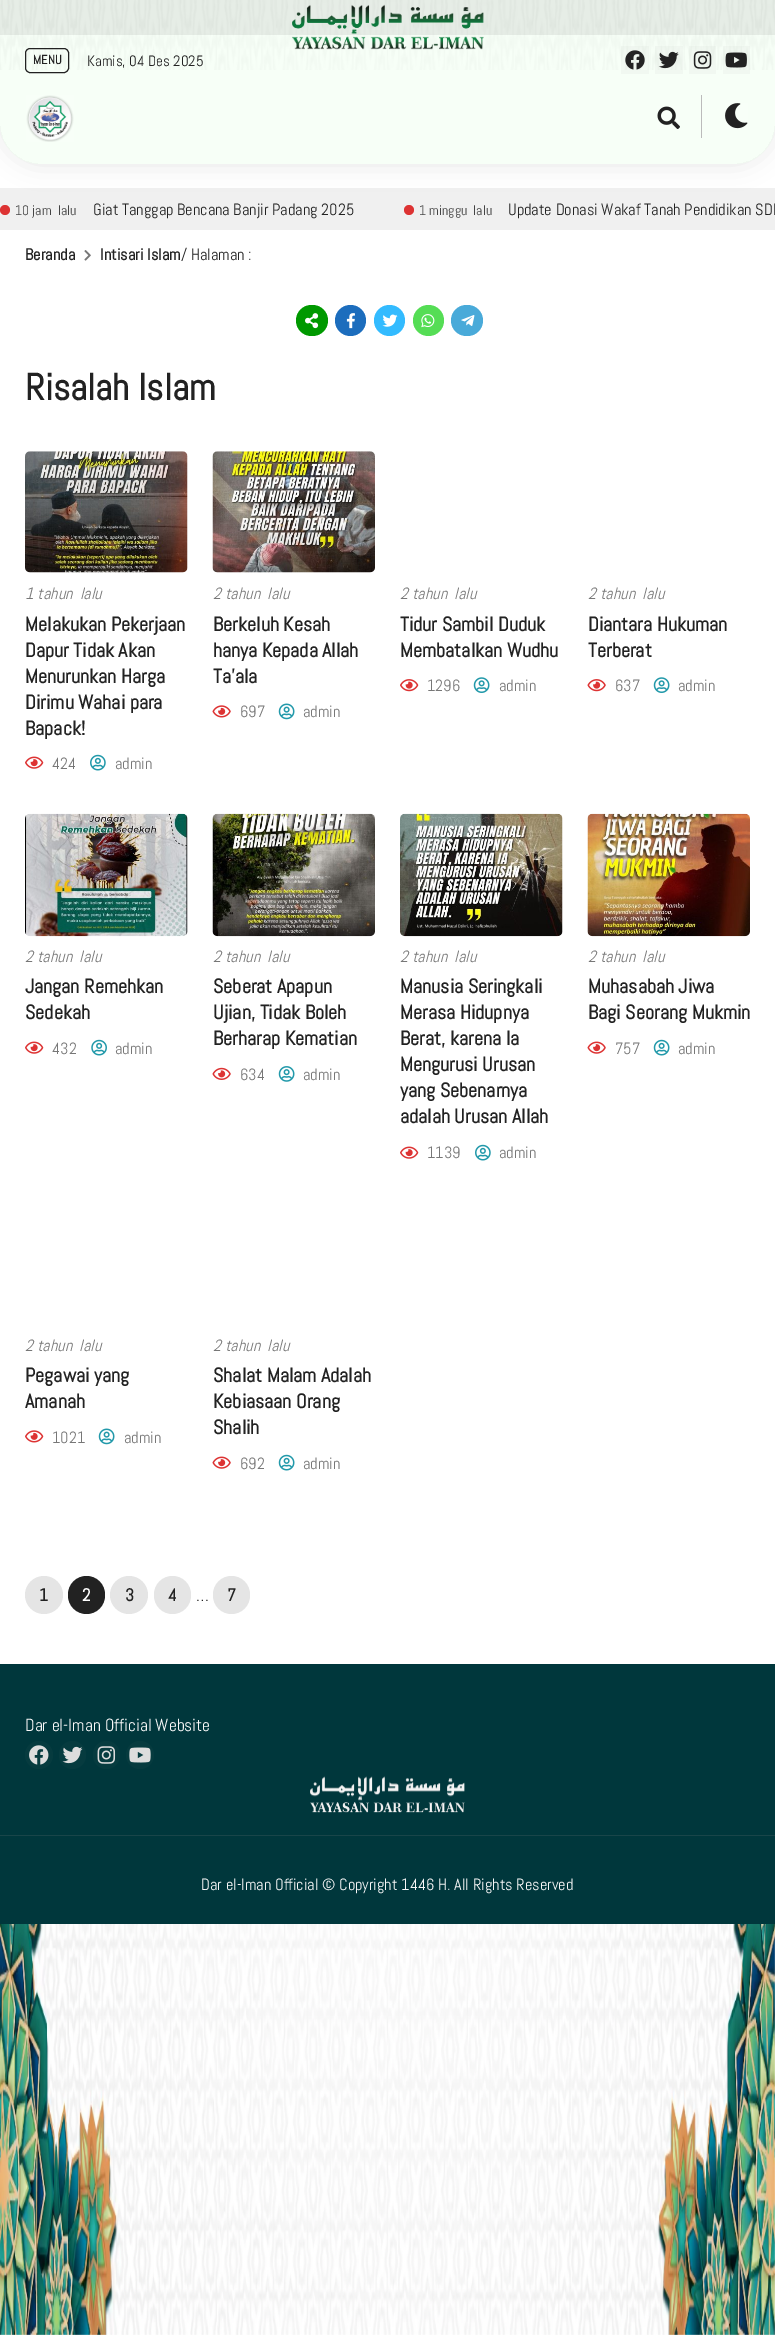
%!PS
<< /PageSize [775 2335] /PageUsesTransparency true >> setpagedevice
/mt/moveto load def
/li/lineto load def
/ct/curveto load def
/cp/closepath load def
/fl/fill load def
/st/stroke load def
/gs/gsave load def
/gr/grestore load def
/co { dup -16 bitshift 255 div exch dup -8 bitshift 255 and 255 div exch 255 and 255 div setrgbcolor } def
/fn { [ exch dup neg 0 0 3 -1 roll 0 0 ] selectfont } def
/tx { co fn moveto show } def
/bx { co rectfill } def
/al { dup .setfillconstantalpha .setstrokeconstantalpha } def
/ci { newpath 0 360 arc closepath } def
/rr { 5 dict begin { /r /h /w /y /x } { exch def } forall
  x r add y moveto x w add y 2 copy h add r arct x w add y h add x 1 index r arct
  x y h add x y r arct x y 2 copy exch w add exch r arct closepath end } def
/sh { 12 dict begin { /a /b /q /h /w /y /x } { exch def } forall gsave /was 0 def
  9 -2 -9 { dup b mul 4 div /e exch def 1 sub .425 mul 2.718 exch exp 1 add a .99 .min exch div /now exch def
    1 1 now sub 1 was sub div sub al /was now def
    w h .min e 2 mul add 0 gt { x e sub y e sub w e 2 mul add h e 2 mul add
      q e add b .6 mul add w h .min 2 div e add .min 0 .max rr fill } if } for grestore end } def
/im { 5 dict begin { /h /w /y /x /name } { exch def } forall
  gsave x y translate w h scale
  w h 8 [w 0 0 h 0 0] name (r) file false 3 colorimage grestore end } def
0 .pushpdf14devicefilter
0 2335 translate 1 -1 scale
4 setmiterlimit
0 0 775 2335 16#FFFFFF bx
(media/1.raw) 0 0 775 2335 im
0 70 775 1594 16#FFFFFF bx
0 188 775 42 16#F0F0F0 bx
gs
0 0 mt 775 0 li 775 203 li 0 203 li cp 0 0 mt 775 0 li 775 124 li 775 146 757 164 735 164 ct 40 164 li 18 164 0 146 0 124 ct cp eoclip newpath
16#000000 co
0 0 775 164 40 12.5 .1 sh
gr
0.5 al
16#F0FFF0 co
0 0 mt 775 0 li 775 124 li 775 146 757 164 735 164 ct 40 164 li 18 164 0 146 0 124 ct cp fl
1 al
(media/2.raw) 292 4 192 46 im
0.07 al
0 0 775 35 16#000000 bx
1 al
16#222222 co
25.5 48.5 43 24 4.5 rr st
0.05 al
621 46 28 28 16#7D7D7D bx
1 al
(media/3.raw) 625 50 20 20 im
0.05 al
655 46 28 28 16#7D7D7D bx
1 al
(media/4.raw) 658 51 21 18 im
0.05 al
689 46 27 28 16#7D7D7D bx
1 al
(media/5.raw) 693 51 19 18 im
0.05 al
723 46 27 28 16#7D7D7D bx
1 al
(media/6.raw) 725 52 22 16 im
(media/7.raw) 26 95 48 47 im
(media/8.raw) 657 106 23 23 im
701 95 1 43 16#BBBBBB bx
(media/9.raw) 725 103 23 26 im
16#DD3333 co
5 210 5 ci fl
409 210 5 ci fl
(media/10.raw) 84 250 7 11 im
16#009900 co
296 305 32 31 15.5 rr fl
(media/11.raw) 305 313 14 16 im
16#1C6DBD co
350.5 320.5 15.5 ci fl
(media/12.raw) 346 313 9 16 im
16#33BBFF co
389.5 320.5 15.5 ci fl
(media/13.raw) 382 314 16 13 im
16#55DD55 co
428.5 320.5 15.5 ci fl
(media/14.raw) 421 314 14 14 im
16#49AAD9 co
451 305 32 31 15.5 rr fl
(media/15.raw) 461 315 14 11 im
(media/16.raw) 25 451 163 122 im
(media/17.raw) 25 756 19 13 im
(media/18.raw) 90 754 16 17 im
(media/19.raw) 212 451 163 122 im
(media/20.raw) 212 705 19 13 im
(media/21.raw) 278 703 17 17 im
(media/22.raw) 400 679 19 13 im
(media/23.raw) 473 677 17 16 im
(media/24.raw) 587 679 19 13 im
(media/23.raw) 653 677 17 16 im
(media/25.raw) 25 813 163 124 im
(media/17.raw) 25 1041 19 13 im
(media/26.raw) 91 1039 16 17 im
(media/27.raw) 212 813 163 124 im
(media/28.raw) 212 1067 19 13 im
(media/29.raw) 278 1066 17 16 im
(media/30.raw) 400 813 163 124 im
(media/17.raw) 400 1146 19 13 im
(media/18.raw) 475 1144 16 17 im
(media/31.raw) 587 813 163 124 im
(media/32.raw) 587 1041 19 13 im
(media/33.raw) 653 1039 17 17 im
(media/34.raw) 25 1430 19 13 im
(media/21.raw) 98 1428 17 17 im
(media/32.raw) 212 1456 19 13 im
(media/33.raw) 278 1454 17 17 im
16#E5E5E5 co
44 1595 19 ci fl
16#222222 co
68 1576 37 38 18.5 rr fl
16#E5E5E5 co
129 1595 19 ci fl
154 1576 37 38 18.5 rr fl
213 1576 37 38 18.5 rr fl
0 1664 775 260 16#00373C bx
(media/35.raw) 310 1776 155 37 im
16#063B3F co
39 1755 14 ci fl
(media/36.raw) 29 1745 20 20 im
59 1741 27 28 13.5 rr fl
(media/37.raw) 62 1746 21 18 im
93 1741 27 28 13.5 rr fl
(media/38.raw) 97 1746 19 18 im
140 1755 14 ci fl
(media/39.raw) 129 1747 22 16 im
0 1835 775 1 16#194549 bx
(MENU) 33 64 /Abel-Bold 12.5 16#222222 tx
(Kamis, 04 Des 2025) 87 66 /Abel-Regular 15 16#222222 tx
(10 jam  lalu) 15 215 /Abel-Regular 13.75 16#444444 tx
(Giat Tanggap Bencana Banjir Padang 2025) 93 215 /Abel-Regular 16.25 16#222222 tx
(1 minggu  lalu) 419 215 /Abel-Regular 13.75 16#444444 tx
(Update Donasi Wakaf Tanah Pendidikan SDI) 508 215 /Abel-Regular 16.25 16#222222 tx
(Beranda) 25 260 /Abel-Bold 16.25 16#222222 tx
(Intisari Islam) 100 260 /Abel-Bold 16.25 16#222222 tx
(/ Halaman :) 181 260 /Abel-Regular 16.25 16#222222 tx
(Risalah Islam) 25 400 /Abel-Bold 37.5 16#222222 tx
(1 tahun  lalu) 25 599 /Abel-Italic 16.25 16#777777 tx
(Melakukan Pekerjaan) 25 631 /Abel-Bold 20 16#222222 tx
(Dapur Tidak Akan) 25 657 /Abel-Bold 20 16#222222 tx
(Menurunkan Harga) 25 683 /Abel-Bold 20 16#222222 tx
(Dirimu Wahai para) 25 709 /Abel-Bold 20 16#222222 tx
(Bapack!) 25 735 /Abel-Bold 20 16#222222 tx
(424) 52 769 /Abel-Regular 16.25 16#777777 tx
(admin) 115 769 /Abel-Regular 16.25 16#777777 tx
(2 tahun  lalu) 213 599 /Abel-Italic 16.25 16#777777 tx
(Berkeluh Kesah) 213 631 /Abel-Bold 20 16#222222 tx
(hanya Kepada Allah) 213 657 /Abel-Bold 20 16#222222 tx
(Ta’ala) 213 683 /Abel-Bold 20 16#222222 tx
(697) 240 717 /Abel-Regular 16.25 16#777777 tx
(admin) 303 717 /Abel-Regular 16.25 16#777777 tx
(2 tahun  lalu) 400 599 /Abel-Italic 16.25 16#777777 tx
(Tidur Sambil Duduk) 400 631 /Abel-Bold 20 16#222222 tx
(Membatalkan Wudhu) 400 657 /Abel-Bold 20 16#222222 tx
(1296) 427 691 /Abel-Regular 16.25 16#777777 tx
(admin) 499 691 /Abel-Regular 16.25 16#777777 tx
(2 tahun  lalu) 588 599 /Abel-Italic 16.25 16#777777 tx
(Diantara Hukuman) 588 631 /Abel-Bold 20 16#222222 tx
(Terberat) 588 657 /Abel-Bold 20 16#222222 tx
(637) 615 691 /Abel-Regular 16.25 16#777777 tx
(admin) 678 691 /Abel-Regular 16.25 16#777777 tx
(2 tahun  lalu) 25 962 /Abel-Italic 16.25 16#777777 tx
(Jangan Remehkan) 25 993 /Abel-Bold 20 16#222222 tx
(Sedekah) 25 1019 /Abel-Bold 20 16#222222 tx
(432) 52 1054 /Abel-Regular 16.25 16#777777 tx
(admin) 115 1054 /Abel-Regular 16.25 16#777777 tx
(2 tahun  lalu) 213 962 /Abel-Italic 16.25 16#777777 tx
(Seberat Apapun) 213 993 /Abel-Bold 20 16#222222 tx
(Ujian, Tidak Boleh) 213 1019 /Abel-Bold 20 16#222222 tx
(Berharap Kematian) 213 1045 /Abel-Bold 20 16#222222 tx
(634) 240 1080 /Abel-Regular 16.25 16#777777 tx
(admin) 303 1080 /Abel-Regular 16.25 16#777777 tx
(2 tahun  lalu) 400 962 /Abel-Italic 16.25 16#777777 tx
(Manusia Seringkali) 400 993 /Abel-Bold 20 16#222222 tx
(Merasa Hidupnya) 400 1019 /Abel-Bold 20 16#222222 tx
(Berat, karena Ia) 400 1045 /Abel-Bold 20 16#222222 tx
(Mengurusi Urusan) 400 1071 /Abel-Bold 20 16#222222 tx
(yang Sebenarnya) 400 1097 /Abel-Bold 20 16#222222 tx
(adalah Urusan Allah) 400 1123 /Abel-Bold 20 16#222222 tx
(1139) 427 1158 /Abel-Regular 16.25 16#777777 tx
(admin) 499 1158 /Abel-Regular 16.25 16#777777 tx
(2 tahun  lalu) 588 962 /Abel-Italic 16.25 16#777777 tx
(Muhasabah Jiwa) 588 993 /Abel-Bold 20 16#222222 tx
(Bagi Seorang Mukmin) 588 1019 /Abel-Bold 20 16#222222 tx
(757) 615 1054 /Abel-Regular 16.25 16#777777 tx
(admin) 678 1054 /Abel-Regular 16.25 16#777777 tx
(2 tahun  lalu) 25 1351 /Abel-Italic 16.25 16#777777 tx
(Pegawai yang) 25 1382 /Abel-Bold 20 16#222222 tx
(Amanah) 25 1408 /Abel-Bold 20 16#222222 tx
(1021) 52 1443 /Abel-Regular 16.25 16#777777 tx
(admin) 124 1443 /Abel-Regular 16.25 16#777777 tx
(2 tahun  lalu) 213 1351 /Abel-Italic 16.25 16#777777 tx
(Shalat Malam Adalah) 213 1382 /Abel-Bold 20 16#222222 tx
(Kebiasaan Orang) 213 1408 /Abel-Bold 20 16#222222 tx
(Shalih) 213 1434 /Abel-Bold 20 16#222222 tx
(692) 240 1469 /Abel-Regular 16.25 16#777777 tx
(admin) 303 1469 /Abel-Regular 16.25 16#777777 tx
(1) 39 1601 /Abel-Bold 17.5 16#222222 tx
(2) 82 1601 /Abel-Bold 17.5 16#FFFFFF tx
(3) 125 1601 /Abel-Bold 17.5 16#222222 tx
(4) 168 1601 /Abel-Bold 17.5 16#222222 tx
(…) 196 1601 /Abel-Regular 17.5 16#222222 tx
(7) 227 1601 /Abel-Bold 17.5 16#222222 tx
(Dar el-Iman Official Website) 25 1731 /Abel-Regular 17.5 16#F7F7F7 tx
(Dar el-Iman Official © Copyright 1446 H. All Rights Reserved) 201 1890 /Abel-Regular 16.25 16#F7F7F7 tx
.poppdf14devicefilter showpage
